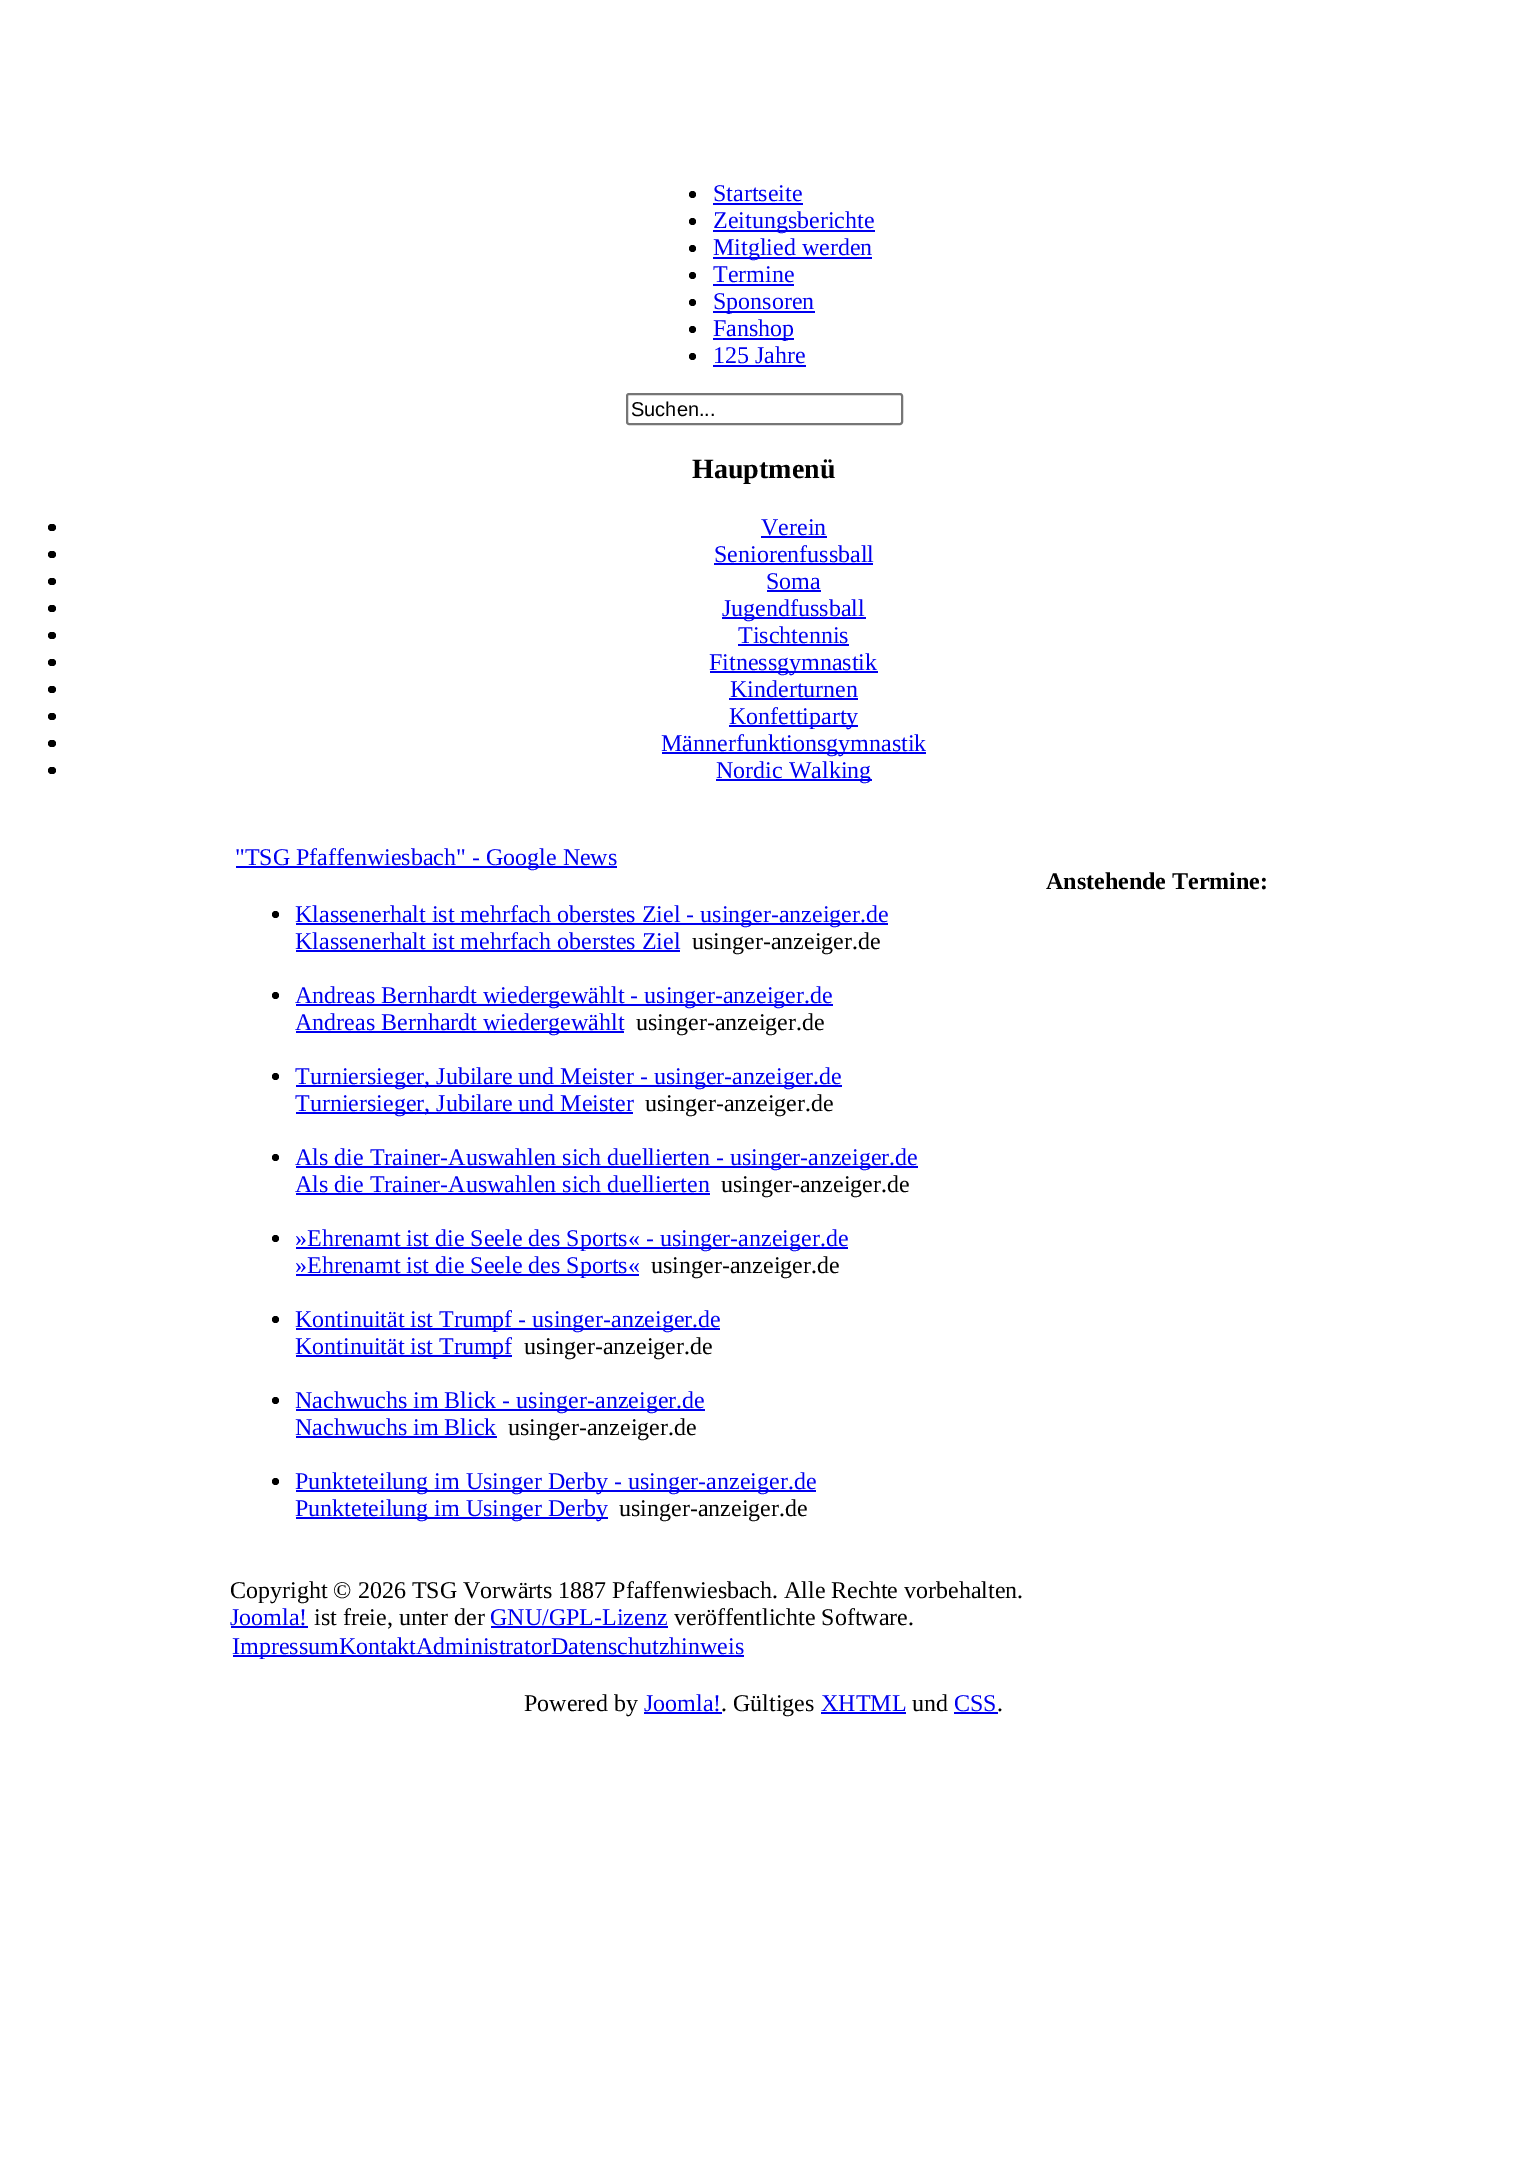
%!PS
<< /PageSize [1527 2158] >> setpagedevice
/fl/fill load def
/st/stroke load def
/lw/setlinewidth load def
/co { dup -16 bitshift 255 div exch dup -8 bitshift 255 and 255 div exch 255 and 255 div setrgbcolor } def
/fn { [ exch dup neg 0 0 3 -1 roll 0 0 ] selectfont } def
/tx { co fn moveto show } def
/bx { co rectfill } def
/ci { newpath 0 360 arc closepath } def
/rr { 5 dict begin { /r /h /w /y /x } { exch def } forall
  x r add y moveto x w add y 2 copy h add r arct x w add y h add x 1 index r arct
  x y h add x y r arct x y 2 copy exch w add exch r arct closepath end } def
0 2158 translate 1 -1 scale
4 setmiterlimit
0 0 1527 2158 16#FFFFFF bx
16#000000 co
692.5 194.5 3.5 ci fl
713 203 90 2 16#0000EE bx
16#000000 co
692.5 221.5 3.5 ci fl
713 230 162 2 16#0000EE bx
16#000000 co
692.5 248.5 3.5 ci fl
713 257 159 2 16#0000EE bx
16#000000 co
692.5 275.5 3.5 ci fl
713 284 81 2 16#0000EE bx
16#000000 co
692.5 302.5 3.5 ci fl
713 311 102 2 16#0000EE bx
16#000000 co
692.5 329.5 3.5 ci fl
713 338 81 2 16#0000EE bx
16#000000 co
692.5 356.5 3.5 ci fl
713 365 93 2 16#0000EE bx
16#767676 co
2 lw
627 394 275 30 2 rr st
16#000000 co
48 524 8 7 3.5 rr fl
761 536 66 2 16#0000EE bx
16#000000 co
48 551 8 7 3.5 rr fl
714 563 159 2 16#0000EE bx
16#000000 co
48 578 8 7 3.5 rr fl
767 590 54 2 16#0000EE bx
16#000000 co
48 605 8 7 3.5 rr fl
722 617 144 2 16#0000EE bx
16#000000 co
48 632 8 7 3.5 rr fl
738 644 111 2 16#0000EE bx
16#000000 co
48 659 8 7 3.5 rr fl
710 671 168 2 16#0000EE bx
16#000000 co
48 686 8 7 3.5 rr fl
729 698 129 2 16#0000EE bx
16#000000 co
48 713 8 7 3.5 rr fl
729 725 129 2 16#0000EE bx
16#000000 co
48 740 8 7 3.5 rr fl
662 752 264 2 16#0000EE bx
16#000000 co
48 767 8 7 3.5 rr fl
716 779 156 2 16#0000EE bx
236 866 381 2 16#0000EE bx
16#000000 co
275.5 914.5 3.5 ci fl
296 923 592 2 16#0000EE bx
296 950 384 2 16#0000EE bx
16#000000 co
275.5 995.5 3.5 ci fl
296 1004 537 2 16#0000EE bx
296 1031 328 2 16#0000EE bx
16#000000 co
275.5 1076.5 3.5 ci fl
296 1085 546 2 16#0000EE bx
296 1112 337 2 16#0000EE bx
16#000000 co
275.5 1157.5 3.5 ci fl
296 1166 622 2 16#0000EE bx
296 1193 414 2 16#0000EE bx
16#000000 co
275.5 1238.5 3.5 ci fl
296 1247 552 2 16#0000EE bx
296 1274 343 2 16#0000EE bx
16#000000 co
275.5 1319.5 3.5 ci fl
296 1328 424 2 16#0000EE bx
296 1355 216 2 16#0000EE bx
16#000000 co
275.5 1400.5 3.5 ci fl
296 1409 409 2 16#0000EE bx
296 1436 201 2 16#0000EE bx
16#000000 co
275.5 1481.5 3.5 ci fl
296 1490 520 2 16#0000EE bx
296 1517 312 2 16#0000EE bx
231 1626 77 2 16#0000EE bx
491 1626 177 2 16#0000EE bx
233 1655 511 2 16#0000EE bx
644 1712 78 2 16#0000EE bx
821 1712 85 2 16#0000EE bx
954 1712 44 2 16#0000EE bx
(Startseite) 713 201 /LiberationSerif-Regular 24 16#0000EE tx
(Zeitungsberichte) 713 228 /LiberationSerif-Regular 24 16#0000EE tx
(Mitglied werden) 713 255 /LiberationSerif-Regular 24 16#0000EE tx
(Termine) 713 282 /LiberationSerif-Regular 24 16#0000EE tx
(Sponsoren) 713 309 /LiberationSerif-Regular 24 16#0000EE tx
(Fanshop) 713 336 /LiberationSerif-Regular 24 16#0000EE tx
(125 Jahre) 713 363 /LiberationSerif-Regular 24 16#0000EE tx
(Suchen...) 631 416 /LiberationSans-Regular 20 16#000000 tx
(Hauptmenü) 692 478 /LiberationSerif-Bold 28 16#000000 tx
(Verein) 761 535 /LiberationSerif-Regular 24 16#0000EE tx
(Seniorenfussball) 714 562 /LiberationSerif-Regular 24 16#0000EE tx
(Soma) 766 589 /LiberationSerif-Regular 24 16#0000EE tx
(Jugendfussball) 722 616 /LiberationSerif-Regular 24 16#0000EE tx
(Tischtennis) 738 643 /LiberationSerif-Regular 24 16#0000EE tx
(Fitnessgymnastik) 709 670 /LiberationSerif-Regular 24 16#0000EE tx
(Kinderturnen) 730 697 /LiberationSerif-Regular 24 16#0000EE tx
(Konfettiparty) 729 724 /LiberationSerif-Regular 24 16#0000EE tx
(Männerfunktionsgymnastik) 661 751 /LiberationSerif-Regular 24 16#0000EE tx
(Nordic Walking) 716 778 /LiberationSerif-Regular 24 16#0000EE tx
("TSG Pfaffenwiesbach" - Google News) 235 865 /LiberationSerif-Regular 24 16#0000EE tx
(Klassenerhalt ist mehrfach oberstes Ziel - usinger-anzeiger.de) 295 922 /LiberationSerif-Regular 24 16#0000EE tx
(Klassenerhalt ist mehrfach oberstes Ziel) 295 949 /LiberationSerif-Regular 24 16#0000EE tx
(usinger-anzeiger.de) 692 949 /LiberationSerif-Regular 24 16#000000 tx
(Andreas Bernhardt wiedergewählt - usinger-anzeiger.de) 295 1003 /LiberationSerif-Regular 24 16#0000EE tx
(Andreas Bernhardt wiedergewählt) 295 1030 /LiberationSerif-Regular 24 16#0000EE tx
(usinger-anzeiger.de) 636 1030 /LiberationSerif-Regular 24 16#000000 tx
(Turniersieger, Jubilare und Meister - usinger-anzeiger.de) 295 1084 /LiberationSerif-Regular 24 16#0000EE tx
(Turniersieger, Jubilare und Meister) 295 1111 /LiberationSerif-Regular 24 16#0000EE tx
(usinger-anzeiger.de) 645 1111 /LiberationSerif-Regular 24 16#000000 tx
(Als die Trainer-Auswahlen sich duellierten - usinger-anzeiger.de) 295 1165 /LiberationSerif-Regular 24 16#0000EE tx
(Als die Trainer-Auswahlen sich duellierten) 295 1192 /LiberationSerif-Regular 24 16#0000EE tx
(usinger-anzeiger.de) 721 1192 /LiberationSerif-Regular 24 16#000000 tx
(»Ehrenamt ist die Seele des Sports« - usinger-anzeiger.de) 295 1246 /LiberationSerif-Regular 24 16#0000EE tx
(»Ehrenamt ist die Seele des Sports«) 295 1273 /LiberationSerif-Regular 24 16#0000EE tx
(usinger-anzeiger.de) 651 1273 /LiberationSerif-Regular 24 16#000000 tx
(Kontinuität ist Trumpf - usinger-anzeiger.de) 295 1327 /LiberationSerif-Regular 24 16#0000EE tx
(Kontinuität ist Trumpf) 295 1354 /LiberationSerif-Regular 24 16#0000EE tx
(usinger-anzeiger.de) 524 1354 /LiberationSerif-Regular 24 16#000000 tx
(Nachwuchs im Blick - usinger-anzeiger.de) 295 1408 /LiberationSerif-Regular 24 16#0000EE tx
(Nachwuchs im Blick) 295 1435 /LiberationSerif-Regular 24 16#0000EE tx
(usinger-anzeiger.de) 508 1435 /LiberationSerif-Regular 24 16#000000 tx
(Punkteteilung im Usinger Derby - usinger-anzeiger.de) 295 1489 /LiberationSerif-Regular 24 16#0000EE tx
(Punkteteilung im Usinger Derby) 295 1516 /LiberationSerif-Regular 24 16#0000EE tx
(usinger-anzeiger.de) 619 1516 /LiberationSerif-Regular 24 16#000000 tx
(Copyright © 2026 TSG Vorwärts 1887 Pfaffenwiesbach. Alle Rechte vorbehalten.) 230 1598 /LiberationSerif-Regular 24 16#000000 tx
(Joomla!) 230 1625 /LiberationSerif-Regular 24 16#0000EE tx
(ist freie, unter der) 314 1625 /LiberationSerif-Regular 24 16#000000 tx
(GNU/GPL-Lizenz) 490 1625 /LiberationSerif-Regular 24 16#0000EE tx
(veröffentlichte Software.) 674 1625 /LiberationSerif-Regular 24 16#000000 tx
(ImpressumKontaktAdministratorDatenschutzhinweis) 232 1654 /LiberationSerif-Regular 24 16#0000EE tx
(Anstehende Termine:) 1046 889 /LiberationSerif-Bold 24 16#000000 tx
(Powered by) 524 1711 /LiberationSerif-Regular 24 16#000000 tx
(Joomla!) 644 1711 /LiberationSerif-Regular 24 16#0000EE tx
(. Gültiges) 721 1711 /LiberationSerif-Regular 24 16#000000 tx
(XHTML) 821 1711 /LiberationSerif-Regular 24 16#0000EE tx
(und) 912 1711 /LiberationSerif-Regular 24 16#000000 tx
(CSS) 954 1711 /LiberationSerif-Regular 24 16#0000EE tx
(.) 997 1711 /LiberationSerif-Regular 24 16#000000 tx
showpage
